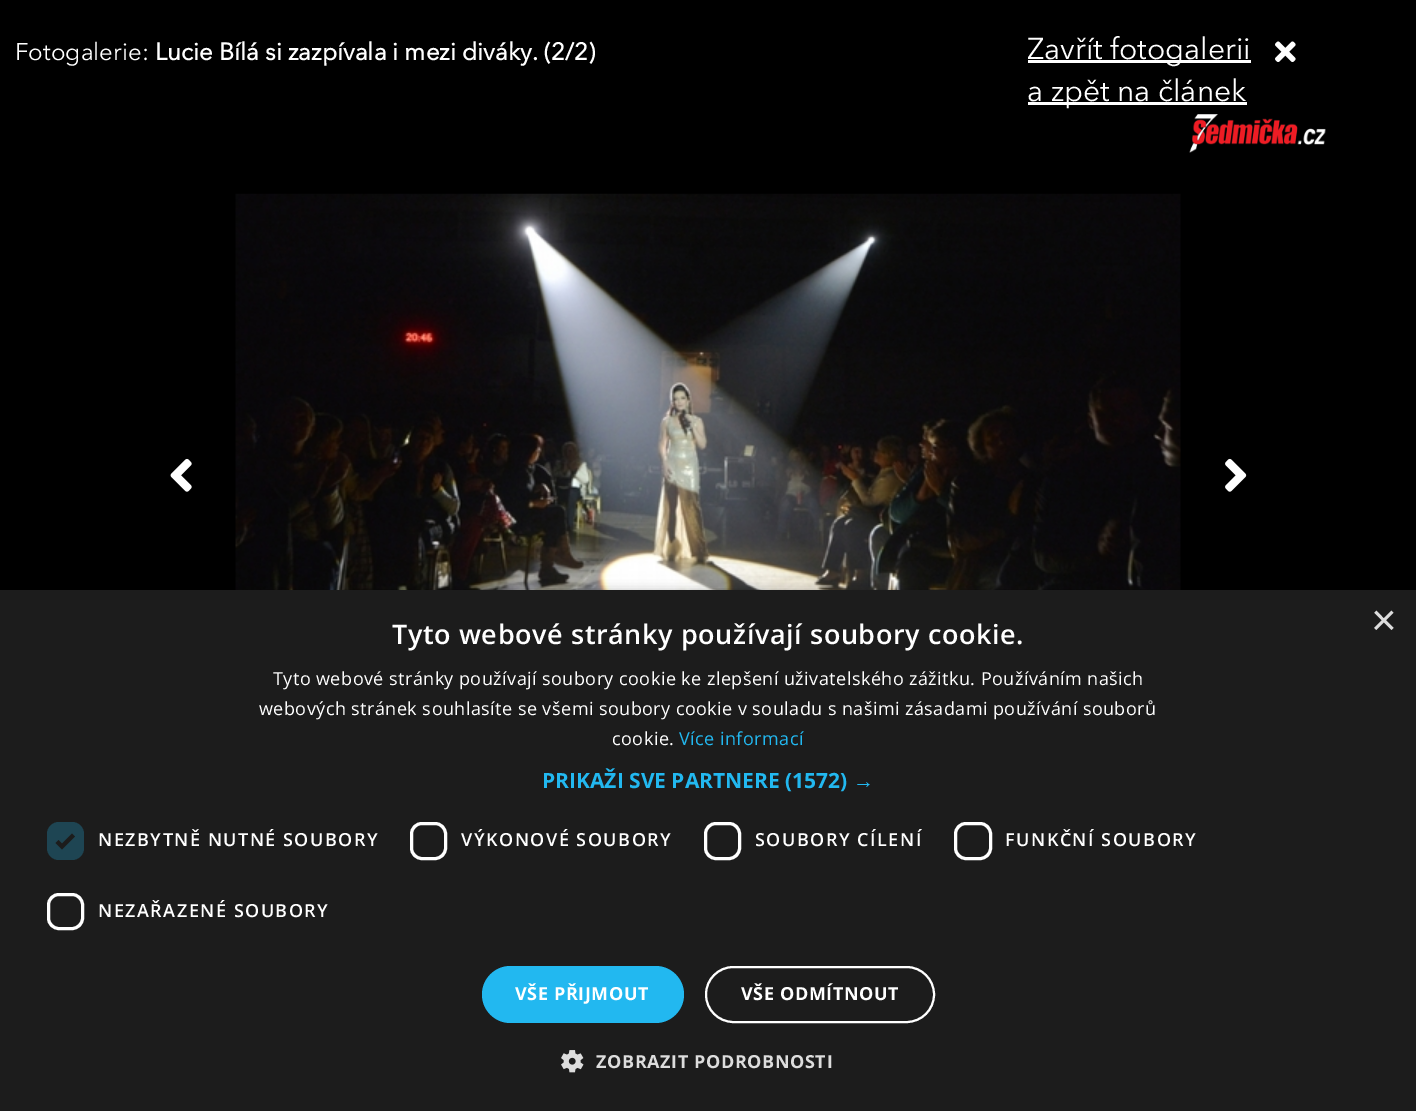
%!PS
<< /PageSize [1416 1111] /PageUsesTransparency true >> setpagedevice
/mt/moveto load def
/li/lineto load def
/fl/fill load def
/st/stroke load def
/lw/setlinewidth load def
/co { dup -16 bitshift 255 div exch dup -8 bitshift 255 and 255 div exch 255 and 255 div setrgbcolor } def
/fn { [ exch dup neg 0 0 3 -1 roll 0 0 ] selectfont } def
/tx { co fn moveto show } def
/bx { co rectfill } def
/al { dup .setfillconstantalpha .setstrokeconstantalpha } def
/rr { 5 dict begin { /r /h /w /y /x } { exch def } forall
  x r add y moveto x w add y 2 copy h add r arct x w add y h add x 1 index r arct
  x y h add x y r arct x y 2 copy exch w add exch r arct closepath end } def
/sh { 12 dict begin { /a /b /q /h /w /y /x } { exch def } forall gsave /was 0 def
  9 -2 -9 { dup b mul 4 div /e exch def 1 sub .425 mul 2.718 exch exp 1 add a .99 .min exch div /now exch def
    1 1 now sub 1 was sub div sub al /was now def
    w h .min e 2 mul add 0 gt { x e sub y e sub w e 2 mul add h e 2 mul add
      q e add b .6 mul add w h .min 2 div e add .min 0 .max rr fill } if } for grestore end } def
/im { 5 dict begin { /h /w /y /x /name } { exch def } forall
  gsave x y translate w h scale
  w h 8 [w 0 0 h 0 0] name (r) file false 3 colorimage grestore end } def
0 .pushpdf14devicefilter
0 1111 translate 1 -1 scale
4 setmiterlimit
0 0 1416 1111 16#000000 bx
1028 60 223 3 16#FFFFFF bx
(media/1.raw) 1275 41 21 21 im
1028 102 219 3 16#FFFFFF bx
(media/2.raw) 1189 114 137 39 im
(media/3.raw) 170 458 22 34 im
(media/4.raw) 235 193 946 397 im
(media/5.raw) 1225 458 22 34 im
16#000000 co
2 593 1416 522 0 6 .35 sh
0 590 1416 521 16#1C1C1C bx
16#1E4553 co
47 822 37 38 12 rr fl
16#1C1C1C co
3.9 lw
57 841.5 mt 62 846.5 li 73.5 835 li st
16#FFFFFF co
3 lw
411.5 823.5 34 35 10.5 rr st
705.5 823.5 34 35 10.5 rr st
955.5 823.5 35 35 10.5 rr st
48.5 894.5 34 34 10.5 rr st
16#22B8F0 co
482 966 202 57 28.5 rr fl
16#FFFFFF co
2 lw
706 967 228 55 27.5 rr st
(media/6.raw) 561 1050 23 23 im
(Fotogalerie:) 15 60 /AvenirNext-Regular 24 16#FFFFFF tx
(Lucie Bílá si zazpívala i mezi diváky. \(2/2\)) 155 60 /AvenirNext-Bold 24 16#FFFFFF tx
(Zavřít fotogalerii) 1027 59 /AvenirNext-Regular 30 16#FFFFFF tx
(a zpět na článek) 1027 101 /AvenirNext-Regular 30 16#FFFFFF tx
(×) 1371 635 /LiberationSans-Regular 44 16#DDDDDD tx
/OpenSans-SemiBold 27 fn
16#FFFFFF co
392 644 mt .6 0 (Tyto webové stránky používají soubory cookie.) ashow
/OpenSans-Regular 18 fn
273 685 mt .45 0 (Tyto webové stránky používají soubory cookie ke zlepšení uživatelského zážitku. Používáním našich) ashow
259 715 mt .45 0 (webových stránek souhlasíte se všemi soubory cookie v souladu s našimi zásadami používání souborů) ashow
612 745 mt .45 0 (cookie.) ashow
16#22B8F0 co
679 745 mt .45 0 (Více informací) ashow
(PRIKAŽI SVE PARTNERE \(1572\)) 542 788 /OpenSans-Bold 21 16#22B8F0 tx
(→) 853 788 /LiberationSans-Bold 21 16#22B8F0 tx
/OpenSans-SemiBold 18 fn
16#FFFFFF co
98 846 mt 1.5 0 (NEZBYTNĚ NUTNÉ SOUBORY) ashow
461 846 mt 1.5 0 (VÝKONOVÉ SOUBORY) ashow
755 846 mt 1.5 0 (SOUBORY CÍLENÍ) ashow
1005 846 mt 1.5 0 (FUNKČNÍ SOUBORY) ashow
98 917 mt 1.5 0 (NEZAŘAZENÉ SOUBORY) ashow
/OpenSans-Bold 18 fn
515 1000 mt .6 0 (VŠE PŘIJMOUT) ashow
741 1000 mt .6 0 (VŠE ODMÍTNOUT) ashow
16#DDDDDD co
596 1068 mt .6 0 (ZOBRAZIT PODROBNOSTI) ashow
.poppdf14devicefilter showpage
